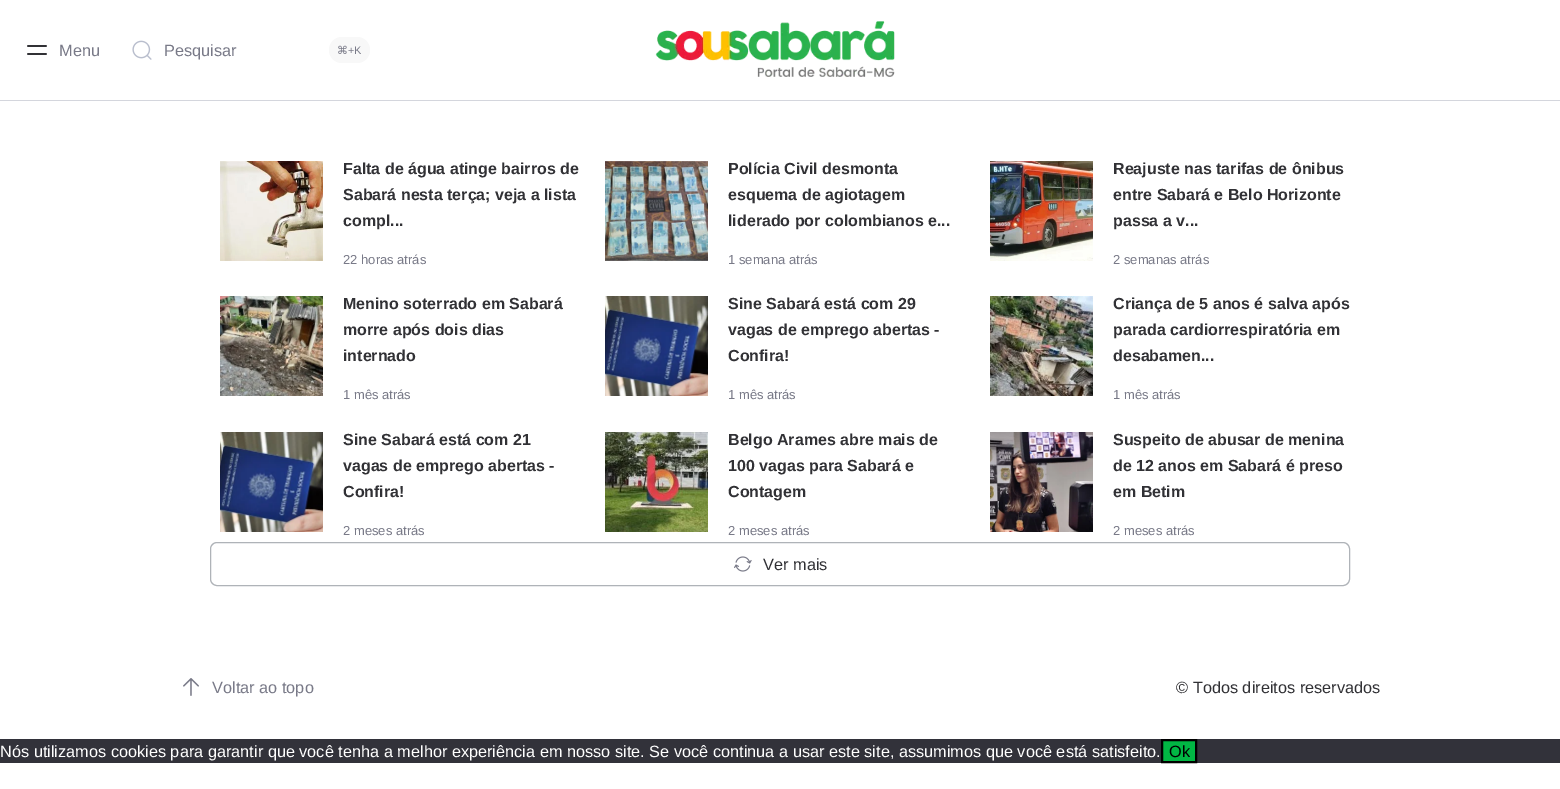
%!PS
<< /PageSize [1560 789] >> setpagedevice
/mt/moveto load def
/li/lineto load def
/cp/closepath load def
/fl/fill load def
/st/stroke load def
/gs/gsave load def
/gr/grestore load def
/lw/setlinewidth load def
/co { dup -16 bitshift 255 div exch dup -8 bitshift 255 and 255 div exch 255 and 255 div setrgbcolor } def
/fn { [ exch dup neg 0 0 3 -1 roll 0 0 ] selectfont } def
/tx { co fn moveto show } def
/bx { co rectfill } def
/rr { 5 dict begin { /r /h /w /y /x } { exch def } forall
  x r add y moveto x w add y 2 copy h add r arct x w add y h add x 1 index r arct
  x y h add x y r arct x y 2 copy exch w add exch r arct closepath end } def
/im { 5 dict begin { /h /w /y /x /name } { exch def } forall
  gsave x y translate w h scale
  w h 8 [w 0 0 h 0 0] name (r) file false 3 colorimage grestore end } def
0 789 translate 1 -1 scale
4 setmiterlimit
0 0 1560 789 16#FFFFFF bx
0 100 1560 1 16#D4D6DD bx
(media/1.raw) 27 45 20 10 im
(media/2.raw) 132 40 20 20 im
16#F8F8F8 co
329 37 41 26 13 rr fl
(media/3.raw) 655 21 240 56 im
(media/4.raw) 220 161 103 100 im
(media/5.raw) 605 161 103 100 im
(media/6.raw) 990 161 103 100 im
(media/7.raw) 220 296 103 100 im
(media/8.raw) 605 296 103 100 im
(media/9.raw) 990 296 103 100 im
(media/8.raw) 220 432 103 100 im
(media/10.raw) 605 432 103 100 im
(media/11.raw) 990 432 103 100 im
16#AFB3B8 co
210.5 542.5 1139 43 6.5 rr st
(media/12.raw) 734 556 18 16 im
(media/13.raw) 183 678 16 18 im
0 739 1560 24 16#32323A bx
16#01B744 co
1162 740 mt 1196 740 li 1196 762 li 1162 762 li cp gs fl gr
16#000000 co
2 lw
st
(Menu) 59 56 /LiberationSans-Regular 16.32 16#797A88 tx
(Pesquisar) 164 56 /LiberationSans-Regular 16.32 16#797A88 tx
(⌘) 337 54 /DejaVuSans-Regular 11 16#797A88 tx
(+K) 348 54 /LiberationSans-Regular 11 16#797A88 tx
(Falta de água atinge bairros de) 343 174 /LiberationSans-Bold 16 16#313135 tx
(Sabará nesta terça; veja a lista) 343 200 /LiberationSans-Bold 16 16#313135 tx
(compl...) 343 226 /LiberationSans-Bold 16 16#313135 tx
(22 horas atrás) 343 264 /LiberationSans-Regular 13 16#797A88 tx
(Polícia Civil desmonta) 728 174 /LiberationSans-Bold 16 16#313135 tx
(esquema de agiotagem) 728 200 /LiberationSans-Bold 16 16#313135 tx
(liderado por colombianos e...) 728 226 /LiberationSans-Bold 16 16#313135 tx
(1 semana atrás) 728 264 /LiberationSans-Regular 13 16#797A88 tx
(Reajuste nas tarifas de ônibus) 1113 174 /LiberationSans-Bold 16 16#313135 tx
(entre Sabará e Belo Horizonte) 1113 200 /LiberationSans-Bold 16 16#313135 tx
(passa a v...) 1113 226 /LiberationSans-Bold 16 16#313135 tx
(2 semanas atrás) 1113 264 /LiberationSans-Regular 13 16#797A88 tx
(Menino soterrado em Sabará) 343 309 /LiberationSans-Bold 16 16#313135 tx
(morre após dois dias) 343 335 /LiberationSans-Bold 16 16#313135 tx
(internado) 343 361 /LiberationSans-Bold 16 16#313135 tx
(1 mês atrás) 343 399 /LiberationSans-Regular 13 16#797A88 tx
(Sine Sabará está com 29) 728 309 /LiberationSans-Bold 16 16#313135 tx
(vagas de emprego abertas -) 728 335 /LiberationSans-Bold 16 16#313135 tx
(Confira!) 728 361 /LiberationSans-Bold 16 16#313135 tx
(1 mês atrás) 728 399 /LiberationSans-Regular 13 16#797A88 tx
(Criança de 5 anos é salva após) 1113 309 /LiberationSans-Bold 16 16#313135 tx
(parada cardiorrespiratória em) 1113 335 /LiberationSans-Bold 16 16#313135 tx
(desabamen...) 1113 361 /LiberationSans-Bold 16 16#313135 tx
(1 mês atrás) 1113 399 /LiberationSans-Regular 13 16#797A88 tx
(Sine Sabará está com 21) 343 445 /LiberationSans-Bold 16 16#313135 tx
(vagas de emprego abertas -) 343 471 /LiberationSans-Bold 16 16#313135 tx
(Confira!) 343 497 /LiberationSans-Bold 16 16#313135 tx
(2 meses atrás) 343 535 /LiberationSans-Regular 13 16#797A88 tx
(Belgo Arames abre mais de) 728 445 /LiberationSans-Bold 16 16#313135 tx
(100 vagas para Sabará e) 728 471 /LiberationSans-Bold 16 16#313135 tx
(Contagem) 728 497 /LiberationSans-Bold 16 16#313135 tx
(2 meses atrás) 728 535 /LiberationSans-Regular 13 16#797A88 tx
(Suspeito de abusar de menina) 1113 445 /LiberationSans-Bold 16 16#313135 tx
(de 12 anos em Sabará é preso) 1113 471 /LiberationSans-Bold 16 16#313135 tx
(em Betim) 1113 497 /LiberationSans-Bold 16 16#313135 tx
(2 meses atrás) 1113 535 /LiberationSans-Regular 13 16#797A88 tx
(Ver mais) 763 570 /LiberationSans-Regular 16.32 16#313135 tx
(Voltar ao topo) 212 693 /LiberationSans-Regular 16.32 16#797A88 tx
(© Todos direitos reservados) 1176 693 /LiberationSans-Regular 16.32 16#313135 tx
(Nós utilizamos cookies para garantir que você tenha a melhor experiência em nosso site. Se você continua a usar este site, assumimos que você está satisfeito.) 0 757 /LiberationSans-Regular 16.32 16#FFFFFF tx
(Ok) 1169 757 /LiberationSans-Regular 16.32 16#000000 tx
showpage
